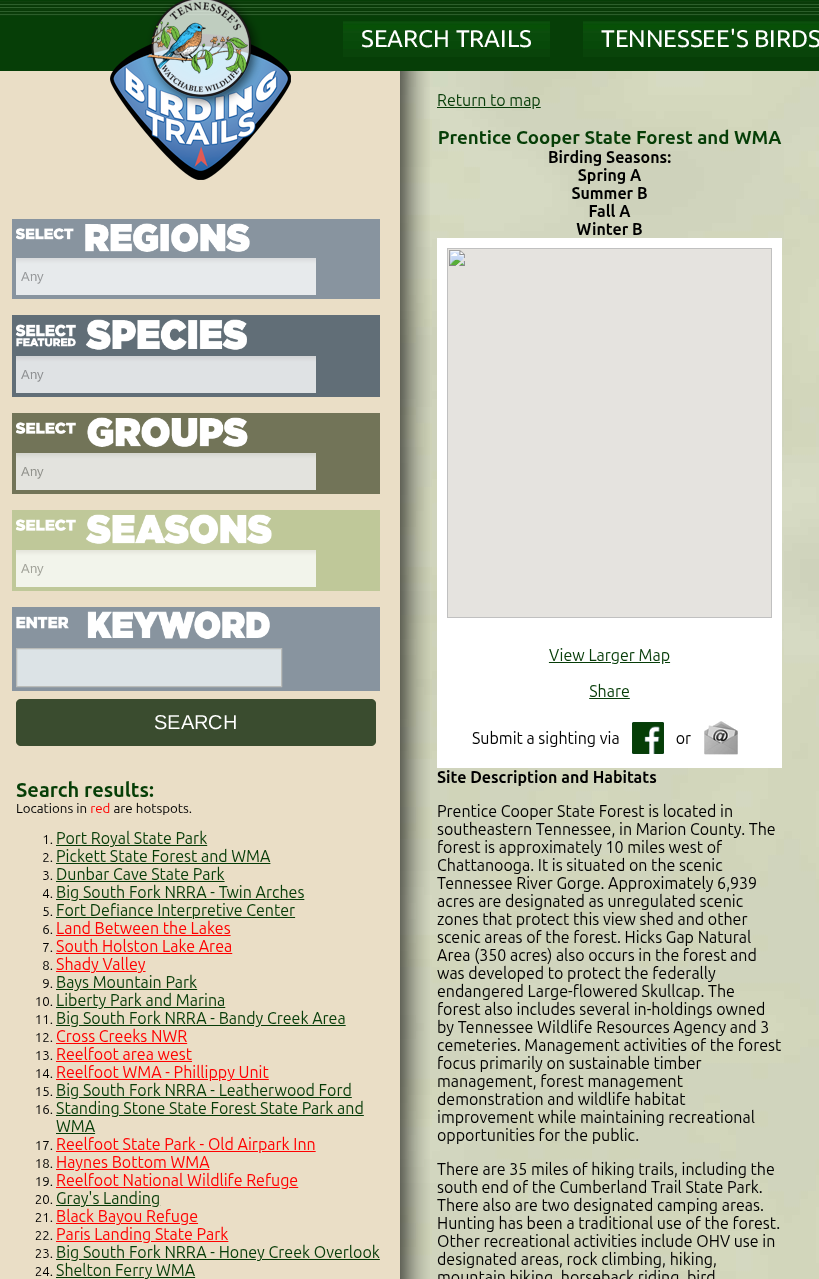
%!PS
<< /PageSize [819 1279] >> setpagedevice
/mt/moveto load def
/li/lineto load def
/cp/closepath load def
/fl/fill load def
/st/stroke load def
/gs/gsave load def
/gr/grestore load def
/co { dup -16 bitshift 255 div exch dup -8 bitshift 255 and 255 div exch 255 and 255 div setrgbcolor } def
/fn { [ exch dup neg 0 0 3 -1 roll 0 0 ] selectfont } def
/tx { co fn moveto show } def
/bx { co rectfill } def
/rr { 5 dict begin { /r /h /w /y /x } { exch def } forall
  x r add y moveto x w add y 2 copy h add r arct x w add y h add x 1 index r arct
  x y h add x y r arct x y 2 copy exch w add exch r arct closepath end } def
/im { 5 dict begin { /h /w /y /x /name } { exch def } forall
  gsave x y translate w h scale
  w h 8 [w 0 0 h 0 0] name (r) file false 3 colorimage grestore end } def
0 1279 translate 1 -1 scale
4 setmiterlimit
0 0 819 1279 16#063E07 bx
(media/1.raw) 0 1 819 15 im
0 71 400 1208 16#EADEC6 bx
(media/2.raw) 110 0 181 180 im
(media/3.raw) 343 21 207 36 im
(media/4.raw) 583 21 236 36 im
12 219 368 80 16#88949F bx
(media/5.raw) 16 223 234 29 im
gs 16 258 mt 316 258 li 316 295 li 16 295 li cp clip newpath
<< /ShadingType 2 /ColorSpace /DeviceRGB /Coords [166 258 166 295] /Extend [true true] /Function << /FunctionType 3 /Domain [0 1] /Functions [<< /FunctionType 2 /Domain [0 1] /C0 [.855 .863 .871] /C1 [.855 .863 .871] /N 1 >> << /FunctionType 2 /Domain [0 1] /C0 [.855 .863 .871] /C1 [.906 .918 .925] /N 1 >> << /FunctionType 2 /Domain [0 1] /C0 [.906 .918 .925] /C1 [.906 .918 .925] /N 1 >>] /Bounds [.01 .15] /Encode [0 1 0 1 0 1] >> >> shfill gr
12 315 368 82 16#616E77 bx
(media/6.raw) 16 319 231 31 im
gs 16 356 mt 316 356 li 316 393 li 16 393 li cp clip newpath
<< /ShadingType 2 /ColorSpace /DeviceRGB /Coords [166 356 166 393] /Extend [true true] /Function << /FunctionType 3 /Domain [0 1] /Functions [<< /FunctionType 2 /Domain [0 1] /C0 [.824 .831 .839] /C1 [.824 .831 .839] /N 1 >> << /FunctionType 2 /Domain [0 1] /C0 [.824 .831 .839] /C1 [.875 .886 .894] /N 1 >> << /FunctionType 2 /Domain [0 1] /C0 [.875 .886 .894] /C1 [.875 .886 .894] /N 1 >>] /Bounds [.01 .15] /Encode [0 1 0 1 0 1] >> >> shfill gr
12 413 368 81 16#727458 bx
(media/7.raw) 16 417 232 30 im
gs 16 453 mt 316 453 li 316 490 li 16 490 li cp clip newpath
<< /ShadingType 2 /ColorSpace /DeviceRGB /Coords [166 453 166 490] /Extend [true true] /Function << /FunctionType 3 /Domain [0 1] /Functions [<< /FunctionType 2 /Domain [0 1] /C0 [.835 .839 .816] /C1 [.835 .839 .816] /N 1 >> << /FunctionType 2 /Domain [0 1] /C0 [.835 .839 .816] /C1 [.89 .89 .871] /N 1 >> << /FunctionType 2 /Domain [0 1] /C0 [.89 .89 .871] /C1 [.89 .89 .871] /N 1 >>] /Bounds [.01 .15] /Encode [0 1 0 1 0 1] >> >> shfill gr
12 510 368 81 16#BFC899 bx
(media/8.raw) 16 514 256 30 im
gs 16 550 mt 316 550 li 316 587 li 16 587 li cp clip newpath
<< /ShadingType 2 /ColorSpace /DeviceRGB /Coords [166 550 166 587] /Extend [true true] /Function << /FunctionType 3 /Domain [0 1] /Functions [<< /FunctionType 2 /Domain [0 1] /C0 [.898 .902 .867] /C1 [.898 .902 .867] /N 1 >> << /FunctionType 2 /Domain [0 1] /C0 [.898 .902 .867] /C1 [.949 .957 .922] /N 1 >> << /FunctionType 2 /Domain [0 1] /C0 [.949 .957 .922] /C1 [.949 .957 .922] /N 1 >>] /Bounds [.01 .15] /Encode [0 1 0 1 0 1] >> >> shfill gr
12 607 368 84 16#88949F bx
(media/9.raw) 16 611 254 28 im
16#DCE3E6 co
16.5 648.5 mt 281.5 648.5 li 281.5 686.5 li 16.5 686.5 li cp gs fl gr
16#BABCB9 co
st
16#3A4C2F co
16 699 360 47 5 rr fl
(media/10.raw) 16 781 364 498 im
(media/11.raw) 400 71 419 1208 im
(SEARCH TRAILS) 361 47 /Ubuntu-Regular 24 16#FFFFFF tx
(TENNESSEE'S BIRDS) 601 47 /Ubuntu-Regular 24 16#FFFFFF tx
(Any) 21 281 /LiberationSans-Regular 13 16#96989A tx
(Any) 21 379 /LiberationSans-Regular 13 16#8E9092 tx
(Any) 21 476 /LiberationSans-Regular 13 16#91928C tx
(Any) 21 573 /LiberationSans-Regular 13 16#A1A299 tx
(SEARCH) 154 729 /LiberationSans-Regular 20 16#FFFFFF tx
showpage
